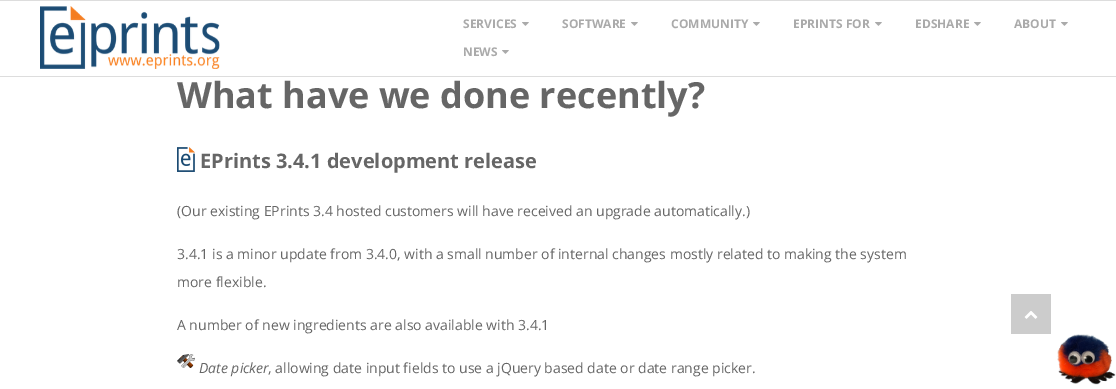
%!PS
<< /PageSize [1116 389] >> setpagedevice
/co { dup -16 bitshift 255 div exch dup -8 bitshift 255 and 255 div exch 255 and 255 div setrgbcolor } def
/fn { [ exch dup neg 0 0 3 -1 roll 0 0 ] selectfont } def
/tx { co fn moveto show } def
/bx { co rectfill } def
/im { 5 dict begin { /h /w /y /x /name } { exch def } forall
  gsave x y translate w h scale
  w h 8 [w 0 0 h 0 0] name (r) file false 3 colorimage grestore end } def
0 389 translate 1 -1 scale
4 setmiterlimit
0 0 1116 389 16#FFFFFF bx
0 0 1116 1 16#DDDDDD bx
0 76 1116 1 16#DDDDDD bx
(media/1.raw) 40 6 180 63 im
(media/2.raw) 522 22 7 4 im
(media/2.raw) 631 22 7 4 im
(media/2.raw) 753 22 7 4 im
(media/2.raw) 875 22 7 4 im
(media/2.raw) 974 22 7 4 im
(media/2.raw) 1061 22 7 4 im
(media/2.raw) 502 50 7 4 im
(media/3.raw) 177 147 18 25 im
(media/4.raw) 177 354 18 14 im
1011 294 40 40 16#CCCCCC bx
(media/5.raw) 1024 311 14 8 im
(media/6.raw) 1057 334 59 51 im
(SERVICES) 463 28 /OpenSans-Bold 12 16#AAAAAA tx
(SOFTWARE) 562 28 /OpenSans-Bold 12 16#AAAAAA tx
(COMMUNITY) 671 28 /OpenSans-Bold 12 16#AAAAAA tx
(EPRINTS FOR) 793 28 /OpenSans-Bold 12 16#AAAAAA tx
(EDSHARE) 915 28 /OpenSans-Bold 12 16#AAAAAA tx
(ABOUT) 1014 28 /OpenSans-Bold 12 16#AAAAAA tx
(NEWS) 463 56 /OpenSans-Bold 12 16#AAAAAA tx
(What have we done recently?) 177 108 /OpenSans-Bold 36 16#666666 tx
(EPrints 3.4.1 development release) 200 168 /OpenSans-Bold 20 16#666666 tx
(\(Our existing EPrints 3.4 hosted customers will have received an upgrade automatically.\)) 177 216 /OpenSans-Regular 14 16#666666 tx
(3.4.1 is a minor update from 3.4.0, with a small number of internal changes mostly related to making the system) 177 259 /OpenSans-Regular 14 16#666666 tx
(more flexible.) 177 287 /OpenSans-Regular 14 16#666666 tx
(A number of new ingredients are also available with 3.4.1) 177 330 /OpenSans-Regular 14 16#666666 tx
(Date picker) 199 373 /OpenSans-Italic 14 16#666666 tx
(, allowing date input fields to use a jQuery based date or date range picker.) 268 373 /OpenSans-Regular 14 16#666666 tx
showpage
